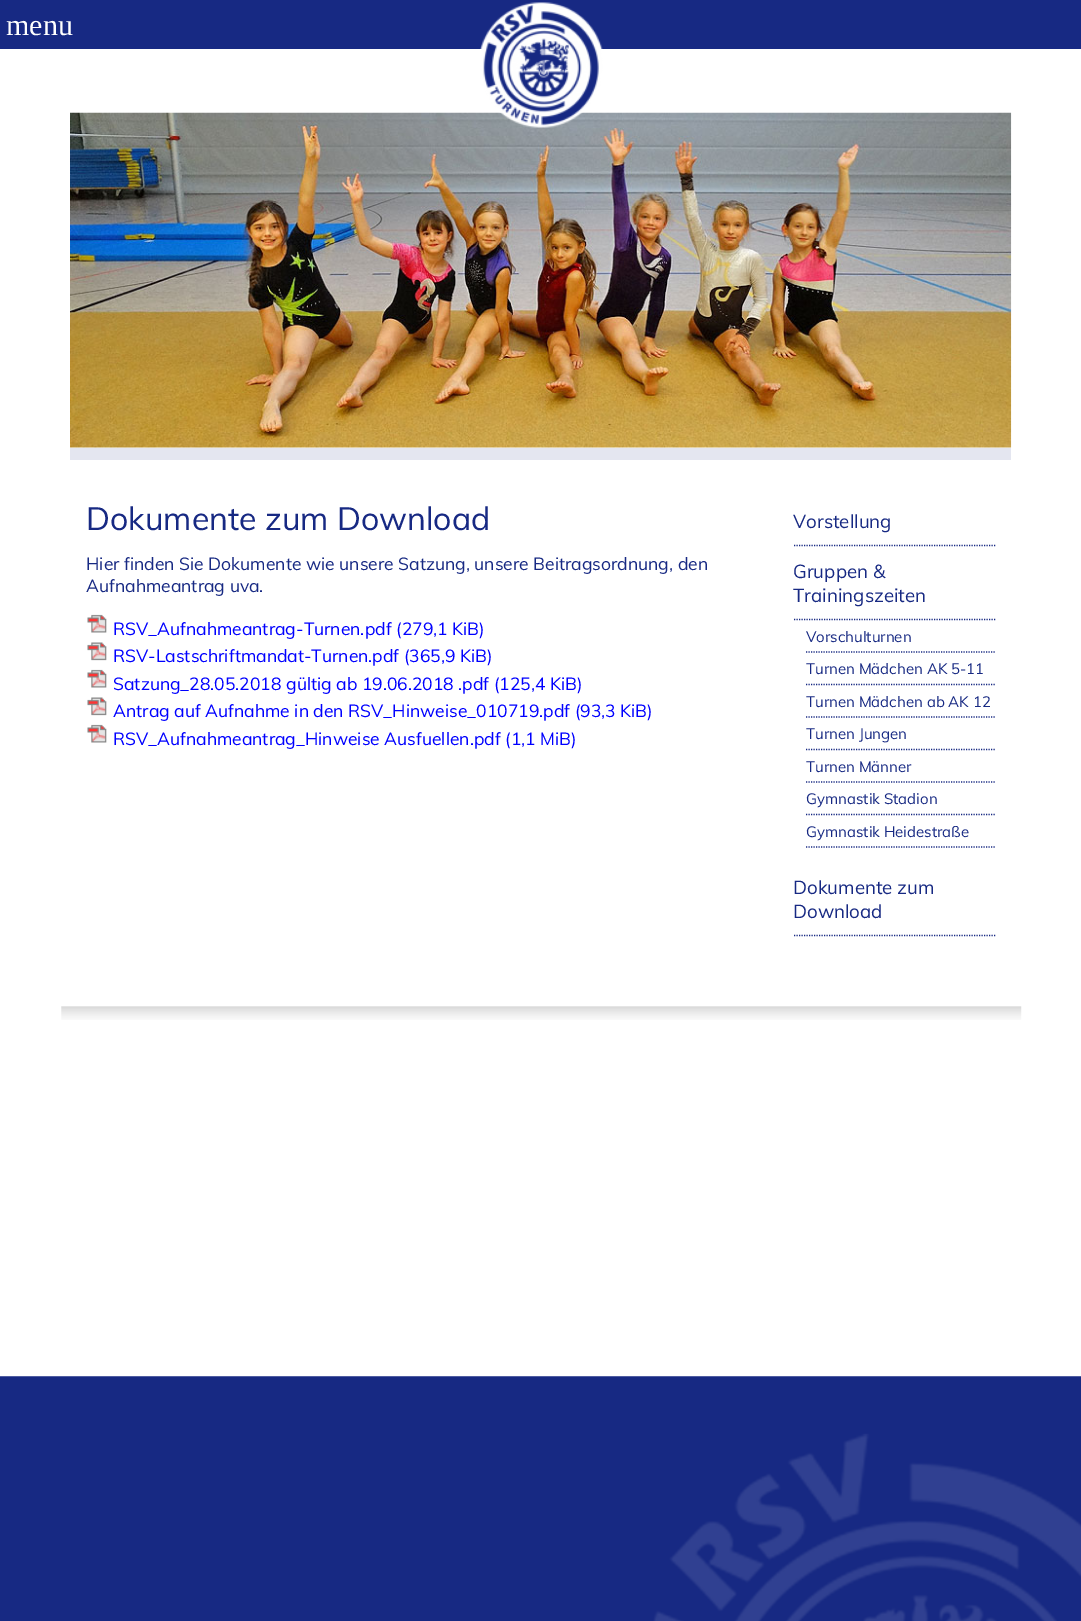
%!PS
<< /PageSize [1081 1621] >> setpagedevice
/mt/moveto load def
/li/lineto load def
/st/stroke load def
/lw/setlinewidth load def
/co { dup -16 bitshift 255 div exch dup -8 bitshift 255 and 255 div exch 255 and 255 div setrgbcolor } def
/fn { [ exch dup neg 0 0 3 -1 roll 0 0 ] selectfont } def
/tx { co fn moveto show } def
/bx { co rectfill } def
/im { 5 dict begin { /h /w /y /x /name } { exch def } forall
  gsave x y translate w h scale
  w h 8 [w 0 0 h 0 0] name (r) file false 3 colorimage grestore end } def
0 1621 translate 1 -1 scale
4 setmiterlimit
0 0 1081 1621 16#FFFFFF bx
(media/1.raw) 0 1376 1081 245 im
0 0 1081 49 16#172983 bx
(media/3.raw) 70 112 942 336 im
(media/2.raw) 480 2 123 126 im
70 448 941 12 16#E4E6F0 bx
(media/4.raw) 87 614 20 19 im
(media/5.raw) 87 642 20 19 im
(media/4.raw) 87 669 20 19 im
(media/5.raw) 87 697 20 19 im
(media/4.raw) 87 724 20 19 im
16#172983 co
1.2 lw
[1.25 1.25] 0 setdash
794 545.5 mt 996 545.5 li st
794 619.5 mt 996 619.5 li st
806 652 mt 996 652 li st
806 684.5 mt 996 684.5 li st
806 717 mt 996 717 li st
806 749.5 mt 996 749.5 li st
806 782 mt 996 782 li st
806 814.5 mt 996 814.5 li st
806 847 mt 996 847 li st
794 935.5 mt 996 935.5 li st
(media/6.raw) 61 1006 961 14 im
(menu) 6 35 /LiberationSerif-Regular 30 16#FFFFFF tx
(Dokumente zum Download) 86 530 /Muli-Regular 32.1 16#172983 tx
(Hier finden Sie Dokumente wie unsere Satzung, unsere Beitragsordnung, den) 86 570 /Muli-Regular 17.5 16#172983 tx
(Aufnahmeantrag uva.) 86 592 /Muli-Regular 17.5 16#172983 tx
(RSV_Aufnahmeantrag-Turnen.pdf \(279,1 KiB\)) 113 635 /Muli-Regular 17.5 16#0000FF tx
(RSV-Lastschriftmandat-Turnen.pdf \(365,9 KiB\)) 113 662 /Muli-Regular 17.5 16#0000FF tx
(Satzung_28.05.2018 gültig ab 19.06.2018 .pdf \(125,4 KiB\)) 113 690 /Muli-Regular 17.5 16#0000FF tx
(Antrag auf Aufnahme in den RSV_Hinweise_010719.pdf \(93,3 KiB\)) 113 717 /Muli-Regular 17.5 16#0000FF tx
(RSV_Aufnahmeantrag_Hinweise Ausfuellen.pdf \(1,1 MiB\)) 113 745 /Muli-Regular 17.5 16#0000FF tx
(Vorstellung) 793 528 /Muli-Regular 18.75 16#172983 tx
(Gruppen &) 793 578 /Muli-Regular 18.75 16#172983 tx
(Trainingszeiten) 793 602 /Muli-Regular 18.75 16#172983 tx
(Vorschulturnen) 806 642 /Muli-Regular 15 16#172983 tx
(Turnen Mädchen AK 5-11) 806 674 /Muli-Regular 15 16#172983 tx
(Turnen Mädchen ab AK 12) 806 707 /Muli-Regular 15 16#172983 tx
(Turnen Jungen) 806 739 /Muli-Regular 15 16#172983 tx
(Turnen Männer) 806 772 /Muli-Regular 15 16#172983 tx
(Gymnastik Stadion) 806 804 /Muli-Regular 15 16#172983 tx
(Gymnastik Heidestraße) 806 837 /Muli-Regular 15 16#172983 tx
(Dokumente zum) 793 894 /Muli-Regular 18.75 16#172983 tx
(Download) 793 918 /Muli-Regular 18.75 16#172983 tx
showpage
